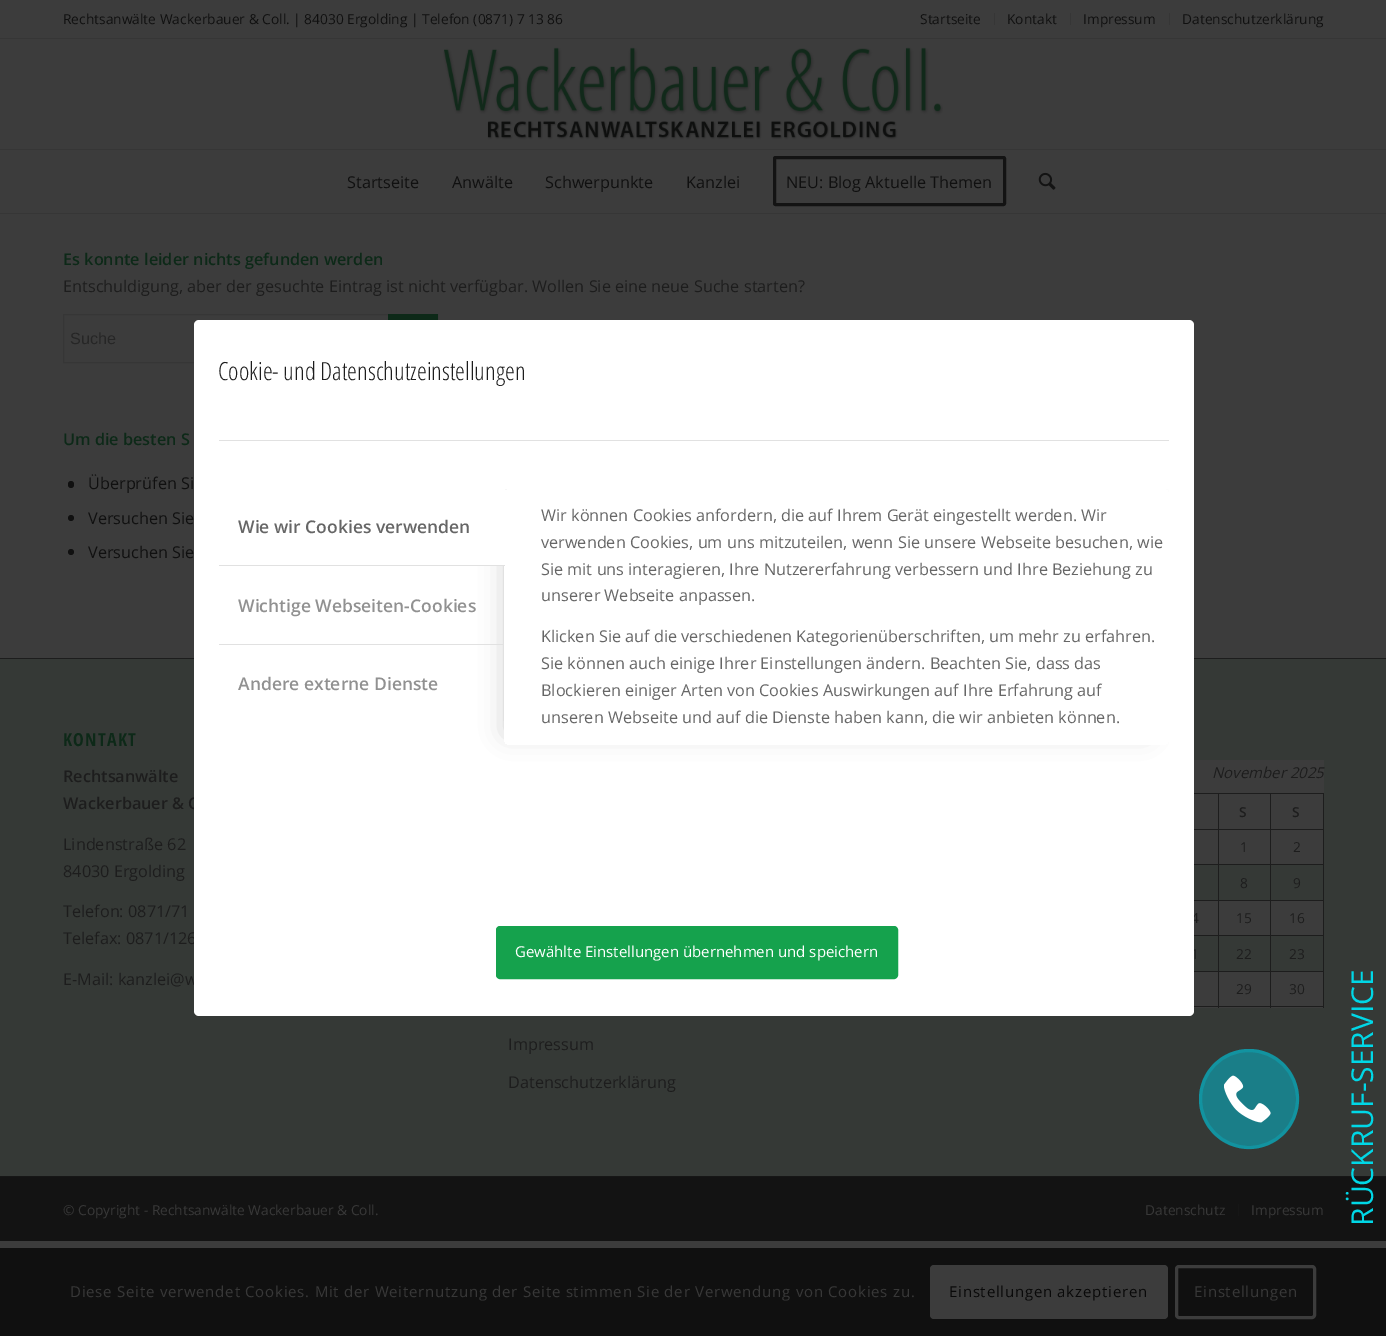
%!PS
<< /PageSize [1386 1336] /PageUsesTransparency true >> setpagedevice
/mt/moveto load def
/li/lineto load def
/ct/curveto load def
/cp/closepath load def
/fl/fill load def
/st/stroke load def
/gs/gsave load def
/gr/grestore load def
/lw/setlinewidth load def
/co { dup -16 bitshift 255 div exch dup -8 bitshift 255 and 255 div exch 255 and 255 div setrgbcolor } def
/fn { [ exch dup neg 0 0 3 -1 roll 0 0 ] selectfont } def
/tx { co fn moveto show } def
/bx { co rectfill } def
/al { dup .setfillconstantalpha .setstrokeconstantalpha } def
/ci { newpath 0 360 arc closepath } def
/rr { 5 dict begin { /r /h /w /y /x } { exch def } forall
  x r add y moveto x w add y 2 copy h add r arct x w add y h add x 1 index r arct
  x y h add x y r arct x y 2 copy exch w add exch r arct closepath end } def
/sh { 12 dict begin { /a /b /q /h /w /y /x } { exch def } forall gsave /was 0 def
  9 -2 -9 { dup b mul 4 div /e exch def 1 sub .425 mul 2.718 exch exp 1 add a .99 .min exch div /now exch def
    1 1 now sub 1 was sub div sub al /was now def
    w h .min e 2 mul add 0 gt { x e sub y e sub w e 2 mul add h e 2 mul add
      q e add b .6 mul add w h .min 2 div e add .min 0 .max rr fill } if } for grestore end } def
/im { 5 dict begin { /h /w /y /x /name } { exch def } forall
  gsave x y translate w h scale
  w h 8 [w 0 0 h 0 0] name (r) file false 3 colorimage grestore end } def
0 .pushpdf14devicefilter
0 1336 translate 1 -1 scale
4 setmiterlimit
0 0 1386 1336 16#3C3C3C bx
0 38 1386 1 16#363636 bx
994 13 1 12 16#363636 bx
1070 13 1 12 16#363636 bx
1169 13 1 12 16#363636 bx
0 213 1386 1 16#363636 bx
(media/1.raw) 443 47 500 93 im
0 149 1386 1 16#363636 bx
16#131313 co
3 lw
774.5 157.5 230 47 1 rr st
(media/2.raw) 1038 172 18 18 im
16#363636 co
1 lw
63.5 314.5 374 48 rectstroke
388 314 50 6 16#0D2918 bx
16#101010 co
68 481 6 7 3 rr fl
71 518 3 ci fl
71 552 3 ci fl
0 659 1386 517 16#353936 bx
0 658 1386 1 16#1D1D1D bx
1194 760 130 248 16#3C3C3C bx
1194 793 130 1 16#1D1D1D bx
1194 829 130 1 16#1D1D1D bx
1323 864 1 144 16#1D1D1D bx
1323 829 1 36 16#1D1D1D bx
1194 865 129 35 16#353936 bx
1194 936 129 35 16#353936 bx
1270 1006 54 1 16#1D1D1D bx
1270 971 1 37 16#1D1D1D bx
1270 971 54 1 16#1D1D1D bx
1270 935 1 38 16#1D1D1D bx
1270 935 54 1 16#1D1D1D bx
1270 900 1 36 16#1D1D1D bx
1270 900 54 1 16#1D1D1D bx
1270 864 1 37 16#1D1D1D bx
1270 864 54 1 16#1D1D1D bx
1270 829 1 36 16#1D1D1D bx
1218 1006 53 1 16#1D1D1D bx
1218 971 1 37 16#1D1D1D bx
1218 971 53 1 16#1D1D1D bx
1218 935 1 38 16#1D1D1D bx
1218 935 53 1 16#1D1D1D bx
1218 900 1 36 16#1D1D1D bx
1218 900 53 1 16#1D1D1D bx
1218 864 1 37 16#1D1D1D bx
1218 864 53 1 16#1D1D1D bx
1218 829 1 36 16#1D1D1D bx
1218 793 1 37 16#1D1D1D bx
1270 793 1 37 16#1D1D1D bx
1323 793 1 37 16#1D1D1D bx
1194 864 25 1 16#1D1D1D bx
1194 900 25 1 16#1D1D1D bx
1194 935 25 1 16#1D1D1D bx
1194 971 25 1 16#1D1D1D bx
1194 1006 25 1 16#1D1D1D bx
0 1177 1386 64 16#131313 bx
0 1176 1386 1 16#161616 bx
1238 1204 1 12 16#161616 bx
16#1A7E88 co
1249 1099 50 ci fl
0.3 al
16#00C3D9 co
3 lw
1249 1099 48.5 ci st
1 al
(media/3.raw) 1224 1075 47 48 im
0 1248 1386 88 16#101010 bx
16#3C3C3C co
930 1265 238 54 4 rr fl
1176.5 1266.5 138 51 2.5 rr st
(Rechtsanwälte Wackerbauer & Coll. | 84030 Ergolding | Telefon \(0871\) 7 13 86) 63 24 /OpenSans-Regular 13.75 16#101010 tx
(Startseite) 920 24 /OpenSans-Regular 13.75 16#101010 tx
(Kontakt) 1007 24 /OpenSans-Regular 13.75 16#101010 tx
(Impressum) 1083 24 /OpenSans-Regular 13.75 16#101010 tx
(Datenschutzerklärung) 1182 24 /OpenSans-Regular 13.75 16#101010 tx
(Startseite) 347 188 /OpenSans-Regular 16.25 16#101010 tx
(Anwälte) 452 188 /OpenSans-Regular 16.25 16#101010 tx
(Schwerpunkte) 545 188 /OpenSans-Regular 16.25 16#101010 tx
(Kanzlei) 686 188 /OpenSans-Regular 16.25 16#101010 tx
(NEU: Blog Aktuelle Themen) 786 188 /OpenSans-Regular 16.25 16#101010 tx
(Es konnte leider nichts gefunden werden) 63 265 /OpenSans-SemiBold 16.25 16#0D2918 tx
(Entschuldigung, aber der gesuchte Eintrag ist nicht verfügbar. Wollen Sie eine neue Suche starten?) 63 292 /OpenSans-Regular 16.25 16#1D1D1D tx
(Suche) 70 344 /LiberationSans-Regular 16.25 16#262626 tx
(Um die besten S) 63 445 /OpenSans-SemiBold 16.25 16#0D2918 tx
(Überprüfen Si) 88 489 /OpenSans-Regular 16.25 16#101010 tx
(Versuchen Sie) 88 524 /OpenSans-Regular 16.25 16#101010 tx
(Versuchen Sie) 88 558 /OpenSans-Regular 16.25 16#101010 tx
/OpenSansCondensed-Bold 18 fn
16#0D2918 co
63 746 mt 1.25 0 (KONTAKT) ashow
(Rechtsanwälte) 63 782 /OpenSans-SemiBold 16.25 16#1D1D1D tx
(Wackerbauer & C) 63 809 /OpenSans-SemiBold 16.25 16#1D1D1D tx
(Lindenstraße 62) 63 850 /OpenSans-Regular 16.25 16#1D1D1D tx
(84030 Ergolding) 63 877 /OpenSans-Regular 16.25 16#1D1D1D tx
(Telefon: 0871/71) 63 917 /OpenSans-Regular 16.25 16#1D1D1D tx
(Telefax: 0871/126) 63 944 /OpenSans-Regular 16.25 16#1D1D1D tx
(E-Mail: kanzlei@w) 63 985 /OpenSans-Regular 16.25 16#1D1D1D tx
(November 2025) 1212 778 /OpenSans-Italic 15 16#1D1D1D tx
/OpenSans-SemiBold 13.75 fn
1239 817 mt 2 0 (S) ashow
1292 817 mt 2 0 (S) ashow
(1) 1240 852 /OpenSans-Regular 13.75 16#1D1D1D tx
(2) 1293 852 /OpenSans-Regular 13.75 16#1D1D1D tx
(8) 1240 888 /OpenSans-Regular 13.75 16#1D1D1D tx
(9) 1293 888 /OpenSans-Regular 13.75 16#1D1D1D tx
(4) 1191 923 /OpenSans-Regular 13.75 16#1D1D1D tx
(15) 1236 923 /OpenSans-Regular 13.75 16#1D1D1D tx
(16) 1289 923 /OpenSans-Regular 13.75 16#1D1D1D tx
(1) 1191 959 /OpenSans-Regular 13.75 16#1D1D1D tx
(22) 1236 959 /OpenSans-Regular 13.75 16#1D1D1D tx
(23) 1289 959 /OpenSans-Regular 13.75 16#1D1D1D tx
(29) 1236 994 /OpenSans-Regular 13.75 16#1D1D1D tx
(30) 1289 994 /OpenSans-Regular 13.75 16#1D1D1D tx
(Impressum) 508 1050 /OpenSans-Regular 16.25 16#1D1D1D tx
(Datenschutzerklärung) 508 1088 /OpenSans-Regular 16.25 16#1D1D1D tx
(© Copyright - Rechtsanwälte Wackerbauer & Coll.) 63 1215 /OpenSans-Regular 13.75 16#383838 tx
(Datenschutz) 1145 1215 /OpenSans-Regular 13.75 16#383838 tx
(Impressum) 1251 1215 /OpenSans-Regular 13.75 16#383838 tx
16#FFFFFF co
194 320 1000 696 5 rr fl
(Cookie- und Datenschutzeinstellungen) 218 380 /OpenSansCondensed-Light 25 16#1D1D1D tx
219 440 950 1 16#E1E1E1 bx
(Andere externe Dienste) 238 690 /OpenSans-SemiBold 17.5 16#919191 tx
gs
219 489 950 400 rectclip
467 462 mt 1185 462 li 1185 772 li 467 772 li cp 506.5 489 mt 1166.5 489 li 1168 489 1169 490 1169 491.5 ct 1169 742.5 li 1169 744 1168 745 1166.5 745 ct 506.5 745 li 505 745 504 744 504 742.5 ct 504 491.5 li 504 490 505 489 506.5 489 ct cp eoclip newpath
16#000000 co
506 501 640 232 0 12.5 .2 sh
gr
503 565 1 80 16#E1E1E1 bx
16#FFFFFF co
221.5 489 mt 505 489 li 505 566 li 219 566 li 219 491.5 li 219 490 220 489 221.5 489 ct cp fl
(Wie wir Cookies verwenden) 238 533 /OpenSans-SemiBold 17.5 16#666666 tx
219 565 286 1 16#E1E1E1 bx
219 644 285 1 16#E1E1E1 bx
503 644 1 77 16#E1E1E1 bx
(Wichtige Webseiten-Cookies) 238 612 /OpenSans-SemiBold 17.5 16#919191 tx
(Wir können Cookies anfordern, die auf Ihrem Gerät eingestellt werden. Wir) 541 521 /OpenSans-Regular 16.25 16#666666 tx
(verwenden Cookies, um uns mitzuteilen, wenn Sie unsere Webseite besuchen, wie) 541 548 /OpenSans-Regular 16.25 16#666666 tx
(Sie mit uns interagieren, Ihre Nutzererfahrung verbessern und Ihre Beziehung zu) 541 575 /OpenSans-Regular 16.25 16#666666 tx
(unserer Webseite anpassen.) 541 601 /OpenSans-Regular 16.25 16#666666 tx
(Klicken Sie auf die verschiedenen Kategorienüberschriften, um mehr zu erfahren.) 541 642 /OpenSans-Regular 16.25 16#666666 tx
(Sie können auch einige Ihrer Einstellungen ändern. Beachten Sie, dass das) 541 669 /OpenSans-Regular 16.25 16#666666 tx
(Blockieren einiger Arten von Cookies Auswirkungen auf Ihre Erfahrung auf) 541 696 /OpenSans-Regular 16.25 16#666666 tx
(unseren Webseite und auf die Dienste haben kann, die wir anbieten können.) 541 723 /OpenSans-Regular 16.25 16#666666 tx
16#15A24D co
497.5 927.5 399 50 2.5 rr gs fl gr
st
(Gewählte Einstellungen übernehmen und speichern) 515 957 /OpenSans-Regular 15 16#FFFFFF tx
/OpenSans-Regular 30 fn
16#00D7E6 co
gs 1373 1226 translate -90 rotate 0 0 mt (RÜCKRUF-SERVICE) show gr
/OpenSans-Regular 15 fn
16#383838 co
70 1297 mt .75 0 (Diese Seite verwendet Cookies. Mit der Weiternutzung der Seite stimmen Sie der Verwendung von Cookies zu.) ashow
16#090909 co
949 1297 mt .75 0 (Einstellungen akzeptieren) ashow
16#383838 co
1194 1297 mt .75 0 (Einstellungen) ashow
.poppdf14devicefilter showpage
